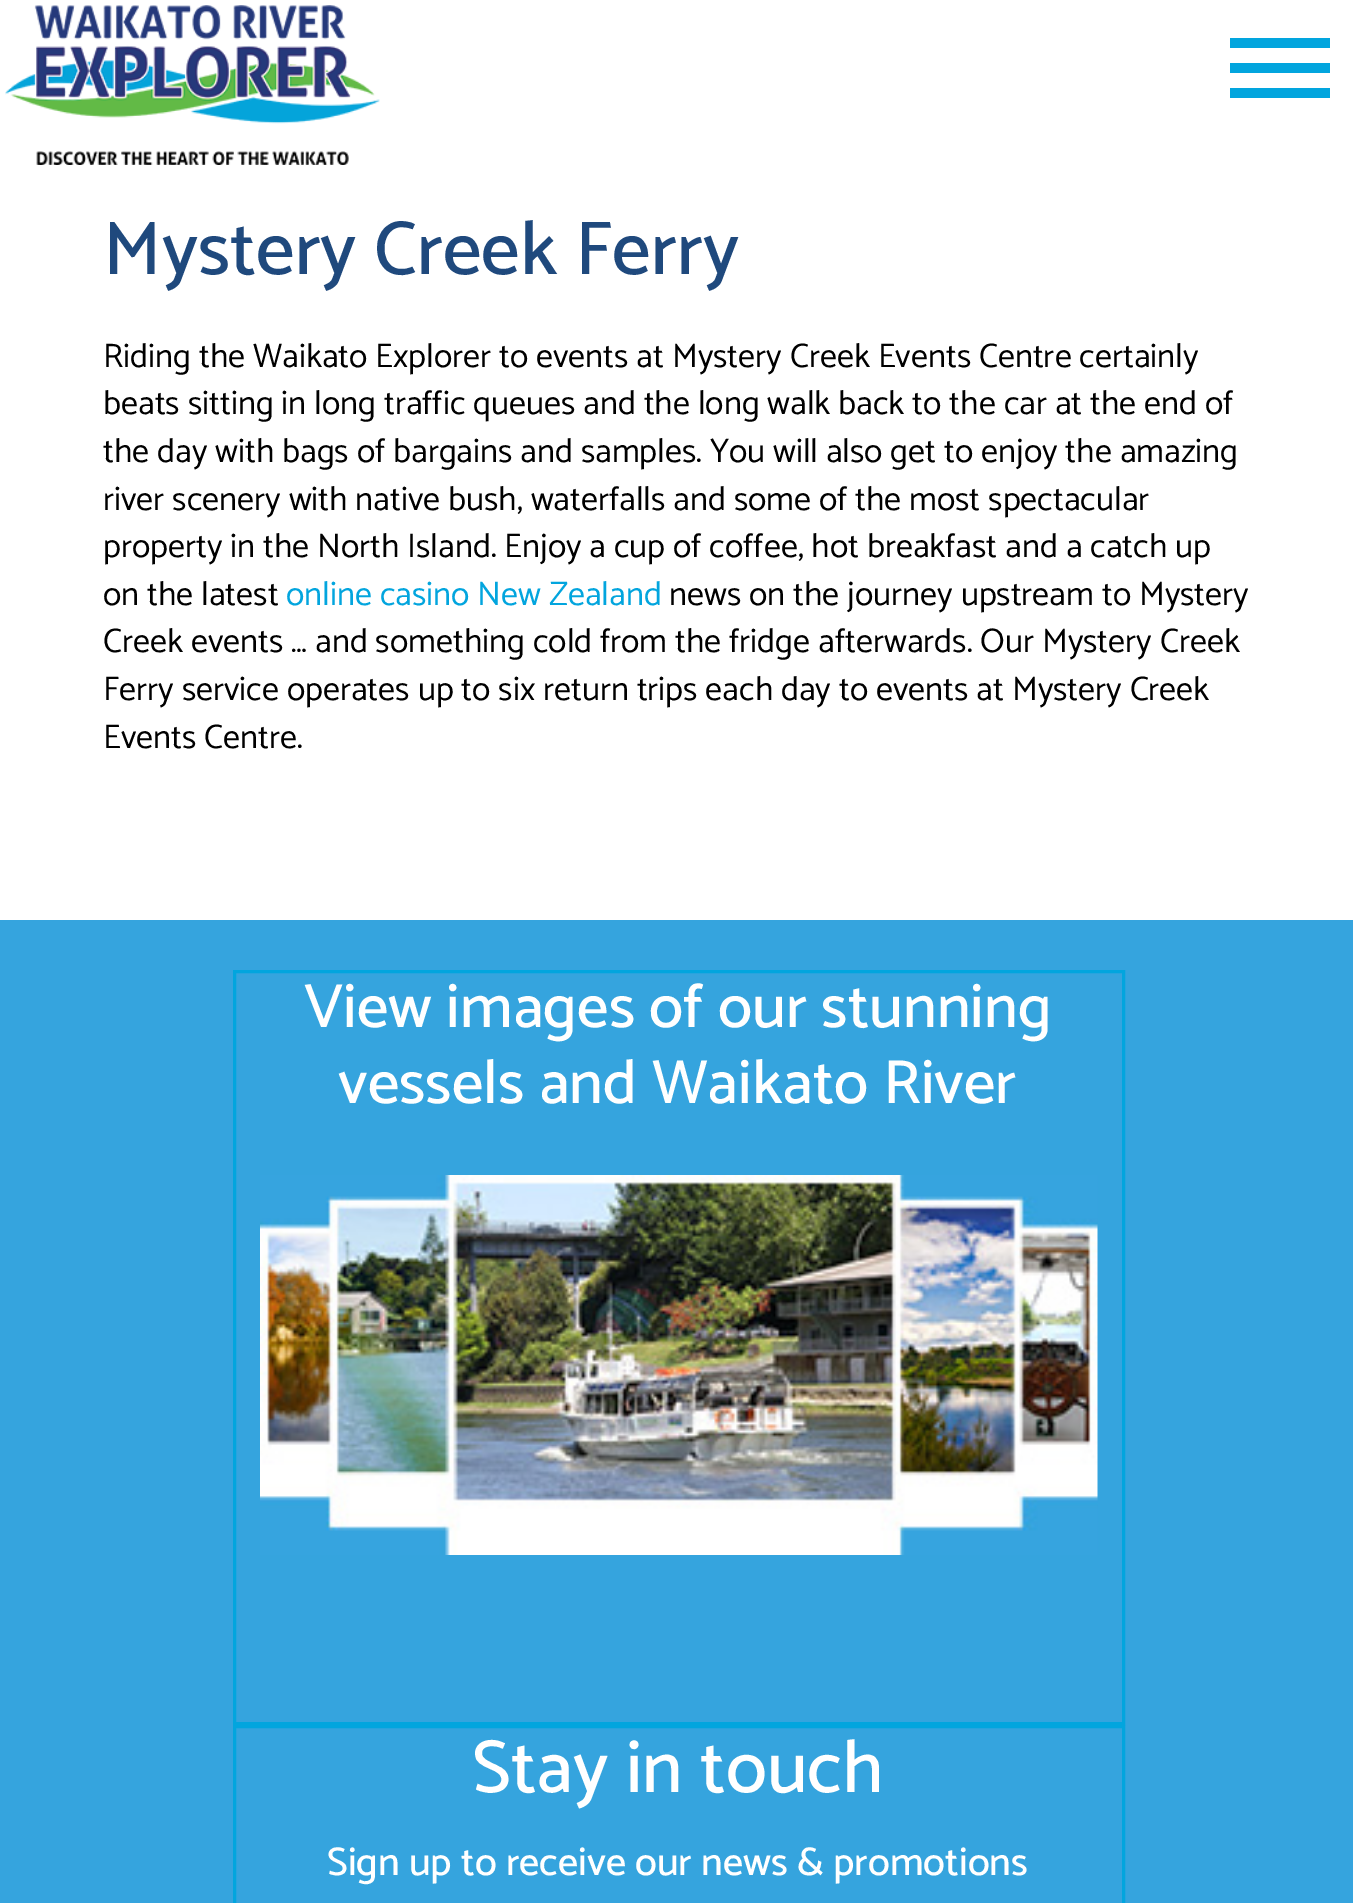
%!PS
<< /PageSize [1353 1903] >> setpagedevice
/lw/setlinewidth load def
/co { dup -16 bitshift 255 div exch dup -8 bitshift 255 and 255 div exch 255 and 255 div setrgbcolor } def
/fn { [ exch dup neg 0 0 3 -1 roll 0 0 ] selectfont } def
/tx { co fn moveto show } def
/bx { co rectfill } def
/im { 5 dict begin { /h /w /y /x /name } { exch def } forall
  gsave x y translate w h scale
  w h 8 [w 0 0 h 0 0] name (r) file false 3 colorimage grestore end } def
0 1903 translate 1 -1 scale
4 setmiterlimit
0 0 1353 1903 16#FFFFFF bx
(media/1.raw) 5 5 375 160 im
1230 38 100 10 16#02A5DE bx
1230 63 100 10 16#02A5DE bx
1230 88 100 10 16#02A5DE bx
0 920 1353 983 16#35A4DE bx
16#02A5DE co
3 lw
234.5 971.5 889 752 rectstroke
(media/2.raw) 260 1175 838 380 im
234.5 1726.5 889 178 rectstroke
(Mystery Creek Ferry) 103 274 /Catamaran-Medium 76.5 16#1F497D tx
(Riding the Waikato Explorer to events at Mystery Creek Events Centre certainly) 103 367 /Catamaran-Regular 34 16#000000 tx
(beats sitting in long traffic queues and the long walk back to the car at the end of) 103 414 /Catamaran-Regular 34 16#000000 tx
(the day with bags of bargains and samples. You will also get to enjoy the amazing) 103 462 /Catamaran-Regular 34 16#000000 tx
(river scenery with native bush, waterfalls and some of the most spectacular) 103 510 /Catamaran-Regular 34 16#000000 tx
(property in the North Island. Enjoy a cup of coffee, hot breakfast and a catch up) 103 557 /Catamaran-Regular 34 16#000000 tx
(on the latest) 103 605 /Catamaran-Regular 34 16#000000 tx
(online casino New Zealand) 286 605 /Catamaran-Regular 34 16#02A5DE tx
(news on the journey upstream to Mystery) 669 605 /Catamaran-Regular 34 16#000000 tx
(Creek events … and something cold from the fridge afterwards. Our Mystery Creek) 103 652 /Catamaran-Regular 34 16#000000 tx
(Ferry service operates up to six return trips each day to events at Mystery Creek) 103 700 /Catamaran-Regular 34 16#000000 tx
(Events Centre.) 103 748 /Catamaran-Regular 34 16#000000 tx
(View images of our stunning) 304 1027 /Catamaran-Medium 62.5 16#FFFFFF tx
(vessels and Waikato River) 338 1103 /Catamaran-Medium 62.5 16#FFFFFF tx
(Stay in touch) 472 1792 /Catamaran-Medium 75 16#FFFFFF tx
(Sign up to receive our news & promotions) 327 1875 /Catamaran-Medium 40 16#FFFFFF tx
showpage
